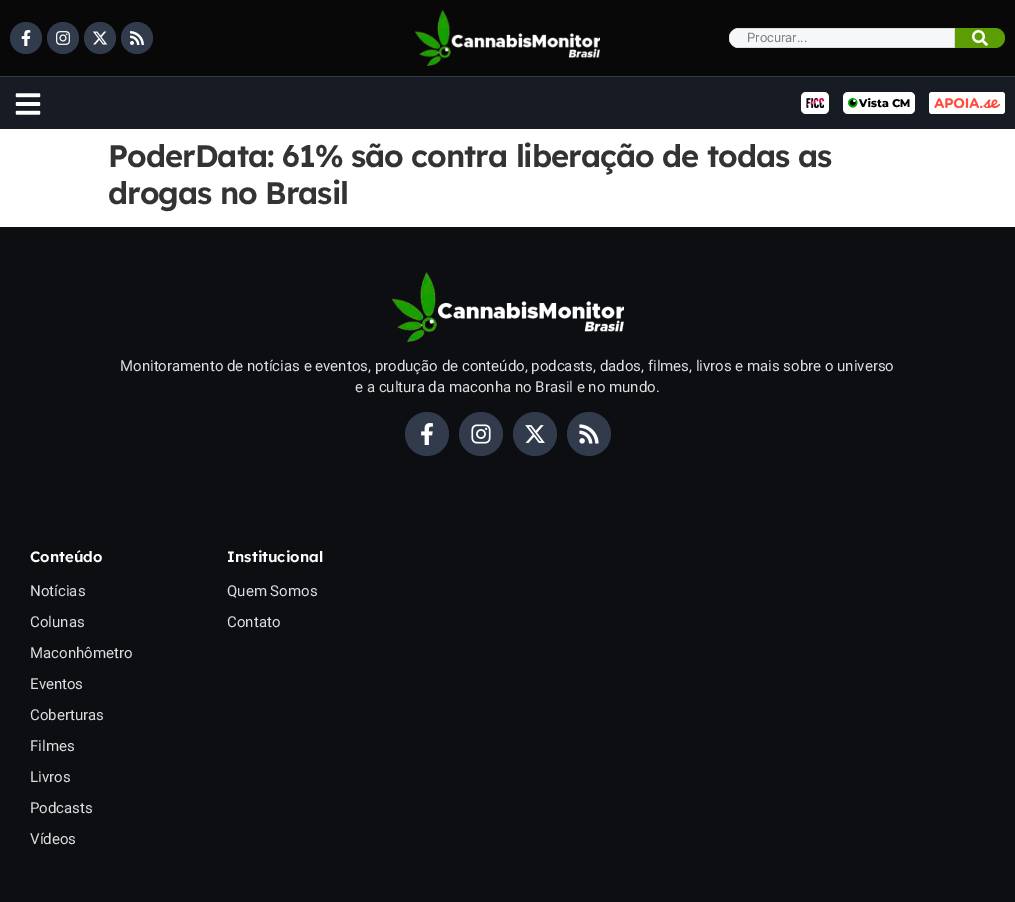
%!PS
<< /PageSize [1015 902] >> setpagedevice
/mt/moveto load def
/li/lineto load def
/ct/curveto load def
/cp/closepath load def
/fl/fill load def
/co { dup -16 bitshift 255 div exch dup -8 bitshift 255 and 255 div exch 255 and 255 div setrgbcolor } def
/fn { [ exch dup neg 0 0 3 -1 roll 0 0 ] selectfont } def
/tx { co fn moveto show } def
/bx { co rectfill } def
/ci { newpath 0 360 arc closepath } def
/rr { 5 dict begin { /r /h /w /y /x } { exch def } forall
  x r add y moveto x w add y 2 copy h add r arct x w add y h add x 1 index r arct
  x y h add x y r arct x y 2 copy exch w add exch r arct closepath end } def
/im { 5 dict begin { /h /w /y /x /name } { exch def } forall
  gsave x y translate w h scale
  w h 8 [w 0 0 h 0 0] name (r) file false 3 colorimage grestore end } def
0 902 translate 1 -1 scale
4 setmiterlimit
0 0 1015 902 16#FFFFFF bx
0 0 1015 76 16#080808 bx
16#313B4C co
26 38 16 ci fl
(media/1.raw) 21 30 10 16 im
63 38 16 ci fl
(media/2.raw) 56 31 14 14 im
100 38 16 ci fl
(media/3.raw) 93 31 15 14 im
137 38 16 ci fl
(media/4.raw) 130 31 14 14 im
(media/5.raw) 415 10 185 56 im
16#F5F7F8 co
739 28 mt 955 28 li 955 48 li 739 48 li 733.5 48 729 43.5 729 38 ct 729 32.5 733.5 28 739 28 ct cp fl
16#DCDCDE co
739 28 mt 735 29 li 954 29 li 954 47 li 735 47 li 739 48 li 955 48 li 955 28 li cp 730 42 mt 729 40 729 36 730 34 ct cp eofill
16#5B9D03 co
955 28 mt 995 28 li 1000.5 28 1005 32.5 1005 38 ct 1005 43.5 1000.5 48 995 48 ct 955 48 li cp fl
(media/6.raw) 972 30 16 16 im
0 77 1015 52 16#171C24 bx
0 76 1015 1 16#313B4C bx
(media/7.raw) 15 93 26 22 im
16#FFFFFF co
801 92 28 22 5 rr fl
(media/8.raw) 806 98 18 10 im
843 92 72 22 5 rr fl
(media/9.raw) 848 98 62 10 im
929 92 76 22 3 rr fl
(media/10.raw) 934 98 66 10 im
0 227 1015 675 16#0C0E12 bx
(media/11.raw) 392 272 232 70 im
16#313B4C co
427 434 22 ci fl
(media/12.raw) 421 423 12 22 im
481 434 22 ci fl
(media/13.raw) 471 424 20 20 im
535 434 22 ci fl
(media/14.raw) 525 425 20 18 im
589 434 22 ci fl
(media/15.raw) 579 424 20 20 im
(Procurar...) 747 42 /Roboto-Regular 13 16#818182 tx
/Lexend-SemiBold 31 fn
16#333333 co
108 167 mt -1 0 (PoderData: 61% são contra liberação de todas as) ashow
108 204 mt -1 0 (drogas no Brasil) ashow
(Monitoramento de notícias e eventos, produção de conteúdo, podcasts, dados, filmes, livros e mais sobre o universo) 120 371 /Roboto-Regular 15 16#DCDCDE tx
(e a cultura da maconha no Brasil e no mundo.) 355 392 /Roboto-Regular 15 16#DCDCDE tx
(Conteúdo) 30 562 /Lexend-SemiBold 15 16#FFFFFF tx
(Notícias) 30 596 /Roboto-Regular 15 16#DCDCDE tx
(Colunas) 30 627 /Roboto-Regular 15 16#DCDCDE tx
(Maconhômetro) 30 658 /Roboto-Regular 15 16#DCDCDE tx
(Eventos) 30 689 /Roboto-Regular 15 16#DCDCDE tx
(Coberturas) 30 720 /Roboto-Regular 15 16#DCDCDE tx
(Filmes) 30 751 /Roboto-Regular 15 16#DCDCDE tx
(Livros) 30 782 /Roboto-Regular 15 16#DCDCDE tx
(Podcasts) 30 813 /Roboto-Regular 15 16#DCDCDE tx
(Vídeos) 30 844 /Roboto-Regular 15 16#DCDCDE tx
(Institucional) 227 562 /Lexend-SemiBold 15 16#FFFFFF tx
(Quem Somos) 227 596 /Roboto-Regular 15 16#DCDCDE tx
(Contato) 227 627 /Roboto-Regular 15 16#DCDCDE tx
showpage
